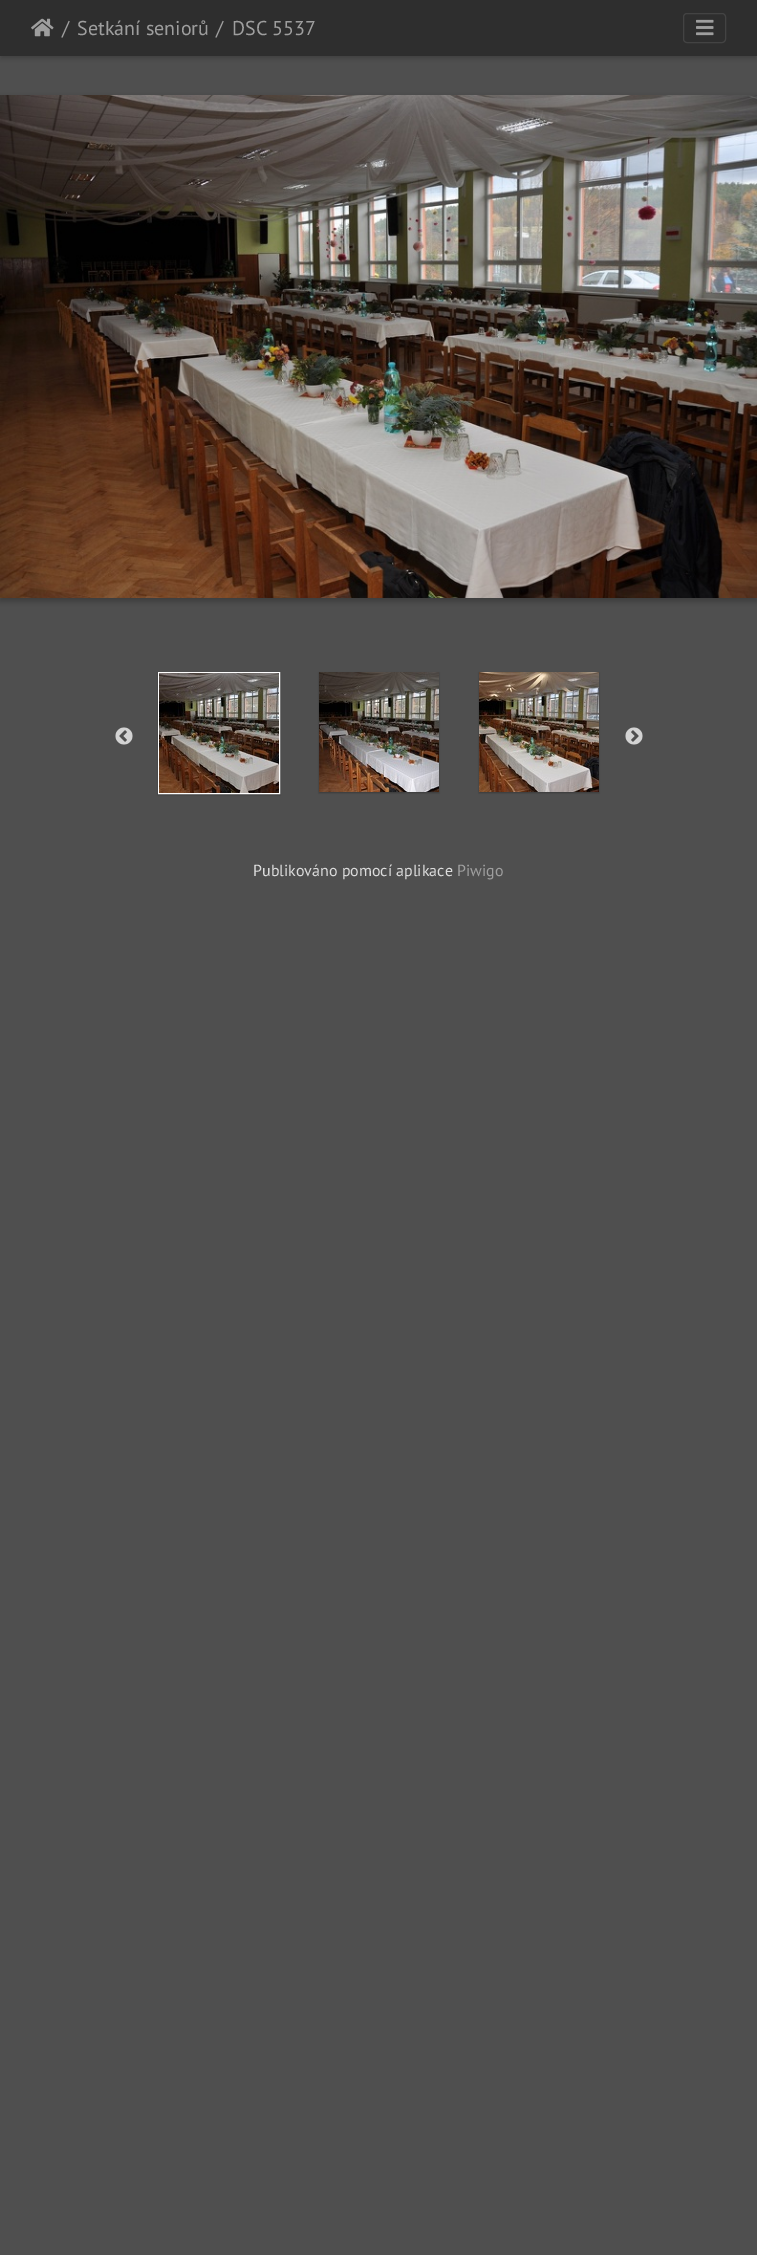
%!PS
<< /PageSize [757 2255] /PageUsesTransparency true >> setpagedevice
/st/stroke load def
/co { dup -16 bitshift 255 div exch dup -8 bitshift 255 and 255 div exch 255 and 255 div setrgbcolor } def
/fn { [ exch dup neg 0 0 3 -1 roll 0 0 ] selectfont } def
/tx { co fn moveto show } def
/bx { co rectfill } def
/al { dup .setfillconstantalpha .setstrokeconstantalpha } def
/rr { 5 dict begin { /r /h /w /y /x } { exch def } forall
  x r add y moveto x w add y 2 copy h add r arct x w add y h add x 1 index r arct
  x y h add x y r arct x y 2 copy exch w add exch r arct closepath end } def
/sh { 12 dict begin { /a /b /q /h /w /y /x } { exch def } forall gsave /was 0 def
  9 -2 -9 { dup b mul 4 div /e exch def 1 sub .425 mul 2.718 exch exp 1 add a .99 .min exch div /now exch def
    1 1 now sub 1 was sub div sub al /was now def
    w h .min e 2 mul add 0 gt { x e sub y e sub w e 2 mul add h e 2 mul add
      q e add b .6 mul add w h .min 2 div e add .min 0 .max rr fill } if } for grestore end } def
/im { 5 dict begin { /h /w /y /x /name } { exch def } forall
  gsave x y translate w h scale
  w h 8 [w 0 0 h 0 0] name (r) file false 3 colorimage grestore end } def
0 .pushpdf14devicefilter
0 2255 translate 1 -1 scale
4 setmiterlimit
0 0 757 2255 16#4F4F4F bx
16#000000 co
1 4 755 54 0 2.5 .2 sh
0 0 757 56 16#2E2E2E bx
(media/1.raw) 31 18 23 19 im
16#434343 co
683.5 13.5 42 29 3.5 rr st
(media/2.raw) 696 19 18 17 im
16#000000 co
0 98 757 503 0 3 .23 sh
(media/3.raw) 0 95 757 503 im
(media/4.raw) 115 727 18 18 im
158 673 122 122 0 1 .24 sh
16#FFFFFF co
158.5 672.5 121 121 rectstroke
(media/5.raw) 159 673 120 120 im
16#000000 co
319 673 120 120 0 1 .24 sh
(media/6.raw) 319 672 120 120 im
479 673 120 120 0 1 .24 sh
(media/7.raw) 479 672 120 120 im
(media/8.raw) 625 727 18 18 im
(/) 62 35 /PTSans-Regular 20 16#9E9E9E tx
(Setkání seniorů) 77 35 /PTSans-Regular 20 16#9E9E9E tx
(/) 216 35 /PTSans-Regular 20 16#9E9E9E tx
(DSC 5537) 232 35 /PTSans-Regular 20 16#9E9E9E tx
(Publikováno pomocí aplikace) 253 876 /PTSans-Regular 16 16#DBDBDB tx
(Piwigo) 457 876 /PTSans-Regular 16 16#9E9E9E tx
.poppdf14devicefilter showpage
